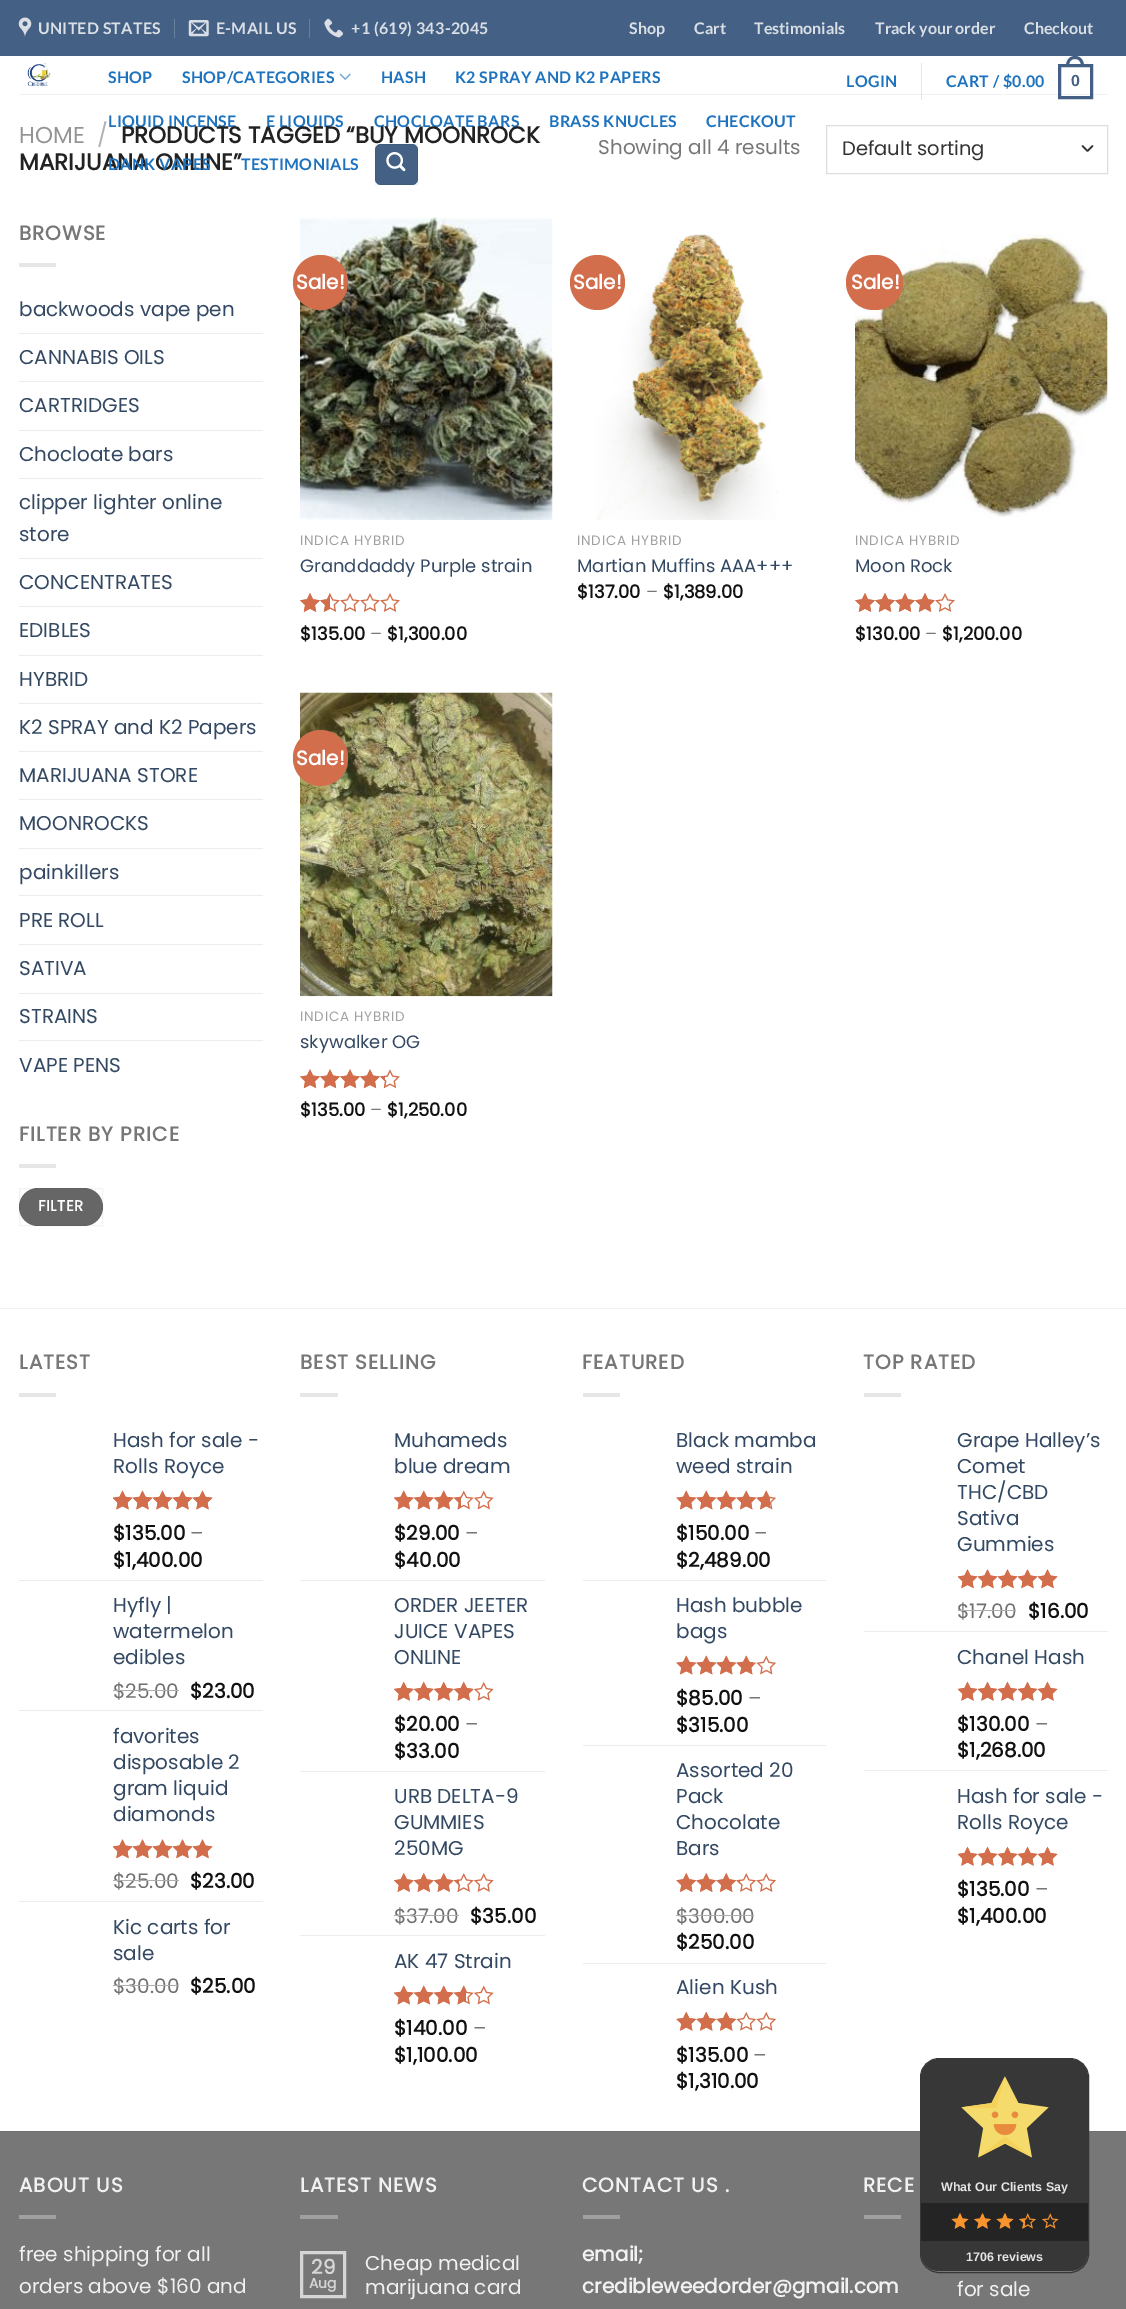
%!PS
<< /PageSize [1126 2309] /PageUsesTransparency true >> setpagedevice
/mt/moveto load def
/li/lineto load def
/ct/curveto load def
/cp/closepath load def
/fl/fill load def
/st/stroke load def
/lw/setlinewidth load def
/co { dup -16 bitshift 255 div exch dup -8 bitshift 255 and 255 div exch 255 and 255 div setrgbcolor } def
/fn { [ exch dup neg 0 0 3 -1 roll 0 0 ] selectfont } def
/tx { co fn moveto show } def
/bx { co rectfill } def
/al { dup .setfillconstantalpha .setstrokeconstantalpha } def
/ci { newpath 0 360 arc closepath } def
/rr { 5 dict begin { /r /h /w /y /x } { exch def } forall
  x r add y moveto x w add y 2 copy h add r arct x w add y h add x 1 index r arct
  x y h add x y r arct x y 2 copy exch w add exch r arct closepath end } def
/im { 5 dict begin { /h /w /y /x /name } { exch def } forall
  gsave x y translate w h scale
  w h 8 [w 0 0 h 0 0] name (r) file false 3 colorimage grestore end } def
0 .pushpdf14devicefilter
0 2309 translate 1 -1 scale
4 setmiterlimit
0 0 1126 2309 16#FFFFFF bx
19 94 1089 1 16#F1F1F1 bx
0 0 1126 56 16#446084 bx
(media/1.raw) 18 17 14 20 im
174 19 1 19 16#69809D bx
(media/2.raw) 188 20 21 17 im
309 19 1 19 16#69809D bx
(media/3.raw) 324 18 20 20 im
(media/4.raw) 27 63 24 23 im
(media/5.raw) 339 73 12 7 im
16#446084 co
375 144 43 41 6 rr fl
0.05 al
16#000000 co
375.5 144.5 42 40 rectstroke
1 al
(media/6.raw) 386 152 20 20 im
921 63 1 37 16#E6E6E6 bx
921 94 1 1 16#DBDBDB bx
16#446084 co
3 lw
1059.5 65.5 32 32 rectstroke
1075 56 mt 1081 56 1084 61 1084 66 ct 1066 66 li 1066 61 1069 56 1075 56 ct cp 1075 59 mt 1079.5 59 1081 62.5 1081 66 ct 1069 66 li 1069 62.5 1070.5 59 1075 59 ct cp eofill
16#333333 co
1.7 lw
1 setlinecap
1 setlinejoin
1082.5 146 mt 1087.5 151 li 1092.5 146 li st
16#DDDDDD co
1 lw
0 setlinecap
0 setlinejoin
826.5 125.5 281 48 rectstroke
19 263 37 4 16#E6E6E6 bx
19 333 244 1 16#ECECEC bx
19 381 244 1 16#ECECEC bx
19 430 244 1 16#ECECEC bx
19 478 244 1 16#ECECEC bx
19 558 244 1 16#ECECEC bx
19 606 244 1 16#ECECEC bx
19 655 244 1 16#ECECEC bx
19 703 244 1 16#ECECEC bx
19 751 244 1 16#ECECEC bx
19 799 244 1 16#ECECEC bx
19 848 244 1 16#ECECEC bx
19 895 244 1 16#ECECEC bx
19 944 244 1 16#ECECEC bx
19 993 244 1 16#ECECEC bx
19 1040 244 1 16#ECECEC bx
19 1164 37 4 16#E6E6E6 bx
16#666666 co
19 1188 84 38 19 rr fl
0.05 al
16#000000 co
19.5 1188.5 83 37 rectstroke
1 al
(media/7.raw) 300 217 253 303 im
16#D26E4B co
320.5 282.5 27.5 ci fl
(media/8.raw) 300 593 100 19 im
(media/9.raw) 300 593 30 19 im
(media/10.raw) 596 234 182 286 im
597.5 282.5 27.5 ci fl
(media/11.raw) 855 234 253 283 im
846 255 57 55 27.5 rr fl
(media/8.raw) 855 593 100 19 im
(media/12.raw) 855 593 79 19 im
(media/13.raw) 300 692 253 305 im
293 730 55 56 27.5 rr fl
(media/14.raw) 300 1069 100 20 im
(media/15.raw) 300 1069 85 20 im
0 1308 1126 1 16#F2F2F2 bx
19 1393 37 4 16#E6E6E6 bx
(media/16.raw) 113 1490 100 20 im
(media/17.raw) 113 1490 100 20 im
19 1580 244 1 16#ECECEC bx
19 1710 244 1 16#ECECEC bx
(media/18.raw) 113 1839 100 20 im
(media/19.raw) 113 1839 100 20 im
19 1901 244 1 16#ECECEC bx
300 1393 38 4 16#E6E6E6 bx
(media/20.raw) 394 1490 100 20 im
(media/21.raw) 394 1490 67 20 im
300 1580 245 1 16#ECECEC bx
(media/22.raw) 394 1681 100 20 im
(media/23.raw) 394 1681 79 20 im
300 1771 245 1 16#ECECEC bx
(media/24.raw) 394 1873 100 19 im
(media/25.raw) 394 1873 65 19 im
300 1935 245 1 16#ECECEC bx
(media/20.raw) 394 1985 100 20 im
(media/26.raw) 394 1985 72 20 im
583 1393 37 4 16#E6E6E6 bx
(media/27.raw) 676 1490 100 20 im
(media/28.raw) 676 1490 94 20 im
583 1580 243 1 16#ECECEC bx
(media/27.raw) 676 1655 100 20 im
(media/29.raw) 676 1655 77 20 im
583 1745 243 1 16#ECECEC bx
(media/30.raw) 676 1873 100 19 im
(media/31.raw) 676 1873 64 19 im
583 1963 243 1 16#ECECEC bx
(media/32.raw) 676 2011 100 20 im
(media/33.raw) 676 2011 60 20 im
864 1393 37 4 16#E6E6E6 bx
(media/18.raw) 958 1569 100 20 im
(media/19.raw) 958 1569 100 20 im
864 1631 244 1 16#ECECEC bx
(media/34.raw) 958 1681 100 20 im
(media/35.raw) 958 1681 100 20 im
864 1770 244 1 16#ECECEC bx
(media/34.raw) 958 1846 100 20 im
(media/35.raw) 958 1846 100 20 im
0 2132 1126 177 16#777777 bx
0 2131 1126 1 16#717171 bx
19 2215 37 4 16#A0A0A0 bx
300 2215 38 4 16#A0A0A0 bx
16#D6D6D6 co
3 lw
301.5 2252.5 43 44 rectstroke
583 2215 37 4 16#A0A0A0 bx
864 2215 37 4 16#A0A0A0 bx
16#373737 co
1 lw
920.5 2058.5 168 214 18.5 rr st
939 2059 mt 1070 2059 li 1080 2059 1088 2067 1088 2077 ct 1088 2203 li 921 2203 li 921 2077 li 921 2067 929 2059 939 2059 ct cp fl
921 2203 167 38 16#242424 bx
16#373737 co
921 2241 mt 1088 2241 li 1088 2253 li 1088 2263 1080 2271 1070 2271 ct 939 2271 li 929 2271 921 2263 921 2253 ct cp fl
(media/36.raw) 961 2076 88 82 im
(media/38.raw) 952 2213 17 16 im
(media/37.raw) 951 2213 17 16 im
(media/39.raw) 974 2213 17 16 im
(media/40.raw) 974 2213 17 16 im
(media/38.raw) 997 2213 17 16 im
(media/37.raw) 996 2213 17 16 im
(media/39.raw) 1019 2213 17 16 im
(media/41.raw) 1019 2218 6 11 im
(media/38.raw) 1042 2213 17 16 im
/Lato-Bold 16 fn
16#DADFE6 co
38 34 mt .3 0 (UNITED STATES) ashow
216 34 mt .3 0 (E-MAIL US) ashow
351 34 mt .3 0 (+1 \(619\) 343-2045) ashow
(Shop) 629 34 /Lato-Bold 16 16#DADFE6 tx
(Cart) 694 34 /Lato-Bold 16 16#DADFE6 tx
(Testimonials) 754 34 /Lato-Bold 16 16#DADFE6 tx
(Track your order) 875 34 /Lato-Bold 16 16#DADFE6 tx
(Checkout) 1024 34 /Lato-Bold 16 16#DADFE6 tx
16#1E73BE co
108 83 mt .3 0 (SHOP) ashow
182 83 mt .3 0 (SHOP/CATEGORIES) ashow
381 83 mt .3 0 (HASH) ashow
455 83 mt .3 0 (K2 SPRAY AND K2 PAPERS) ashow
108 127 mt .3 0 (LIQUID INCENSE) ashow
266 127 mt .3 0 (E LIQUIDS) ashow
374 127 mt .3 0 (CHOCLOATE BARS) ashow
549 127 mt .3 0 (BRASS KNUCLES) ashow
706 127 mt .3 0 (CHECKOUT) ashow
846 87 mt .3 0 (LOGIN) ashow
946 87 mt .3 0 (CART / $0.00) ashow
/LiberationSans-Bold 16 fn
16#446084 co
1071 86 mt .3 0 (0) ashow
(HOME) 19 143 /Poppins-Regular 23 16#949494 tx
(/) 97 143 /Poppins-Regular 23 16#B2B2B2 tx
(PRODUCTS TAGGED “BUY MOONROCK) 121 143 /Poppins-Bold 23 16#222222 tx
(MARIJUANA ONLINE”) 19 170 /Poppins-Bold 23 16#222222 tx
/Lato-Bold 16 fn
16#1E73BE co
241 170 mt .3 0 (TESTIMONIALS) ashow
108 170 mt .3 0 (DANK VAPES) ashow
(Showing all 4 results) 598 154 /Poppins-Regular 20 16#777777 tx
(Default sorting) 842 155 /Poppins-Regular 19.5 16#333333 tx
/Poppins-Bold 20 fn
16#777777 co
19 240 mt 1 0 (BROWSE) ashow
(backwoods vape pen) 19 316 /Poppins-Regular 20 16#334862 tx
(CANNABIS OILS) 19 364 /Poppins-Regular 20 16#334862 tx
(CARTRIDGES) 19 412 /Poppins-Regular 20 16#334862 tx
(Chocloate bars) 19 461 /Poppins-Regular 20 16#334862 tx
(clipper lighter online) 19 509 /Poppins-Regular 20 16#334862 tx
(store) 19 541 /Poppins-Regular 20 16#334862 tx
(CONCENTRATES) 19 589 /Poppins-Regular 20 16#334862 tx
(EDIBLES) 19 637 /Poppins-Regular 20 16#334862 tx
(HYBRID) 19 686 /Poppins-Regular 20 16#334862 tx
(K2 SPRAY and K2 Papers) 19 734 /Poppins-Regular 20 16#334862 tx
(MARIJUANA STORE) 19 782 /Poppins-Regular 20 16#334862 tx
(MOONROCKS) 19 830 /Poppins-Regular 20 16#334862 tx
(painkillers) 19 879 /Poppins-Regular 20 16#334862 tx
(PRE ROLL) 19 927 /Poppins-Regular 20 16#334862 tx
(SATIVA) 19 975 /Poppins-Regular 20 16#334862 tx
(STRAINS) 19 1023 /Poppins-Regular 20 16#334862 tx
(VAPE PENS) 19 1072 /Poppins-Regular 20 16#334862 tx
/Poppins-Bold 20 fn
16#777777 co
19 1141 mt 1 0 (FILTER BY PRICE) ashow
/Poppins-Bold 15 fn
16#FFFFFF co
38 1211 mt .5 0 (FILTER) ashow
(Sale!) 296 289 /Poppins-Bold 20 16#FFFFFF tx
/Poppins-Regular 13.5 fn
16#A0A0A0 co
300 545 mt .75 0 (INDICA HYBRID) ashow
(Granddaddy Purple strain) 300 572 /Poppins-Regular 18 16#334862 tx
($135.00) 300 640 /Poppins-Bold 18 16#111111 tx
(–) 370 640 /Poppins-Regular 18 16#777777 tx
($1,300.00) 387 640 /Poppins-Bold 18 16#111111 tx
(Sale!) 573 289 /Poppins-Bold 20 16#FFFFFF tx
/Poppins-Regular 13.5 fn
16#A0A0A0 co
577 545 mt .75 0 (INDICA HYBRID) ashow
(Martian Muffins AAA+++) 577 572 /Poppins-Regular 18 16#334862 tx
($137.00) 577 598 /Poppins-Bold 18 16#111111 tx
(–) 646 598 /Poppins-Regular 18 16#777777 tx
($1,389.00) 663 598 /Poppins-Bold 18 16#111111 tx
(Sale!) 851 289 /Poppins-Bold 20 16#FFFFFF tx
/Poppins-Regular 13.5 fn
16#A0A0A0 co
855 545 mt .75 0 (INDICA HYBRID) ashow
(Moon Rock) 855 572 /Poppins-Regular 18 16#334862 tx
($130.00) 855 640 /Poppins-Bold 18 16#111111 tx
(–) 925 640 /Poppins-Regular 18 16#777777 tx
($1,200.00) 942 640 /Poppins-Bold 18 16#111111 tx
(Sale!) 296 765 /Poppins-Bold 20 16#FFFFFF tx
/Poppins-Regular 13.5 fn
16#A0A0A0 co
300 1021 mt .75 0 (INDICA HYBRID) ashow
(skywalker OG) 300 1048 /Poppins-Regular 18 16#334862 tx
($135.00) 300 1116 /Poppins-Bold 18 16#111111 tx
(–) 370 1116 /Poppins-Regular 18 16#777777 tx
($1,250.00) 387 1116 /Poppins-Bold 18 16#111111 tx
/Poppins-Bold 20 fn
16#777777 co
19 1369 mt 1 0 (LATEST) ashow
(Hash for sale -) 113 1447 /Poppins-Regular 20 16#334862 tx
(Rolls Royce) 113 1473 /Poppins-Regular 20 16#334862 tx
($135.00) 113 1540 /Poppins-Bold 20 16#111111 tx
(–) 190 1540 /Poppins-Regular 20 16#777777 tx
($1,400.00) 113 1567 /Poppins-Bold 20 16#111111 tx
(Hyfly |) 113 1612 /Poppins-Regular 20 16#334862 tx
(watermelon) 113 1638 /Poppins-Regular 20 16#334862 tx
(edibles) 113 1664 /Poppins-Regular 20 16#334862 tx
($25.00) 113 1698 /Poppins-Regular 20 16#707070 tx
113 1690 66 1 16#ADADAD bx
($23.00) 190 1698 /Poppins-Bold 20 16#111111 tx
(favorites) 113 1743 /Poppins-Regular 20 16#334862 tx
(disposable 2) 113 1769 /Poppins-Regular 20 16#334862 tx
(gram liquid) 113 1795 /Poppins-Regular 20 16#334862 tx
(diamonds) 113 1821 /Poppins-Regular 20 16#334862 tx
($25.00) 113 1888 /Poppins-Regular 20 16#707070 tx
113 1880 66 1 16#ADADAD bx
($23.00) 190 1888 /Poppins-Bold 20 16#111111 tx
(Kic carts for) 113 1934 /Poppins-Regular 20 16#334862 tx
(sale) 113 1960 /Poppins-Regular 20 16#334862 tx
($30.00) 113 1993 /Poppins-Regular 20 16#707070 tx
113 1985 66 1 16#ADADAD bx
($25.00) 190 1993 /Poppins-Bold 20 16#111111 tx
16#777777 co
300 1369 mt 1 0 (BEST SELLING) ashow
(Muhameds) 394 1447 /Poppins-Regular 20 16#334862 tx
(blue dream) 394 1473 /Poppins-Regular 20 16#334862 tx
($29.00) 394 1540 /Poppins-Bold 20 16#111111 tx
(–) 465 1540 /Poppins-Regular 20 16#777777 tx
($40.00) 394 1567 /Poppins-Bold 20 16#111111 tx
(ORDER JEETER) 394 1612 /Poppins-Regular 20 16#334862 tx
(JUICE VAPES) 394 1638 /Poppins-Regular 20 16#334862 tx
(ONLINE) 394 1664 /Poppins-Regular 20 16#334862 tx
($20.00) 394 1731 /Poppins-Bold 20 16#111111 tx
(–) 465 1731 /Poppins-Regular 20 16#777777 tx
($33.00) 394 1758 /Poppins-Bold 20 16#111111 tx
(URB DELTA-9) 394 1803 /Poppins-Regular 20 16#334862 tx
(GUMMIES) 394 1829 /Poppins-Regular 20 16#334862 tx
(250MG) 394 1855 /Poppins-Regular 20 16#334862 tx
($37.00) 394 1923 /Poppins-Regular 20 16#707070 tx
394 1915 65 1 16#ADADAD bx
($35.00) 470 1923 /Poppins-Bold 20 16#111111 tx
(AK 47 Strain) 394 1968 /Poppins-Regular 20 16#334862 tx
($140.00) 394 2035 /Poppins-Bold 20 16#111111 tx
(–) 473 2035 /Poppins-Regular 20 16#777777 tx
($1,100.00) 394 2062 /Poppins-Bold 20 16#111111 tx
16#777777 co
582 1369 mt 1 0 (FEATURED) ashow
(Black mamba) 676 1447 /Poppins-Regular 20 16#334862 tx
(weed strain) 676 1473 /Poppins-Regular 20 16#334862 tx
($150.00) 676 1540 /Poppins-Bold 20 16#111111 tx
(–) 754 1540 /Poppins-Regular 20 16#777777 tx
($2,489.00) 676 1567 /Poppins-Bold 20 16#111111 tx
(Hash bubble) 676 1612 /Poppins-Regular 20 16#334862 tx
(bags) 676 1638 /Poppins-Regular 20 16#334862 tx
($85.00) 676 1705 /Poppins-Bold 20 16#111111 tx
(–) 748 1705 /Poppins-Regular 20 16#777777 tx
($315.00) 676 1732 /Poppins-Bold 20 16#111111 tx
(Assorted 20) 676 1777 /Poppins-Regular 20 16#334862 tx
(Pack) 676 1803 /Poppins-Regular 20 16#334862 tx
(Chocolate) 676 1829 /Poppins-Regular 20 16#334862 tx
(Bars) 676 1855 /Poppins-Regular 20 16#334862 tx
($300.00) 676 1923 /Poppins-Regular 20 16#707070 tx
676 1915 78 1 16#ADADAD bx
($250.00) 676 1949 /Poppins-Bold 20 16#111111 tx
(Alien Kush) 676 1994 /Poppins-Regular 20 16#334862 tx
($135.00) 676 2062 /Poppins-Bold 20 16#111111 tx
(–) 753 2062 /Poppins-Regular 20 16#777777 tx
($1,310.00) 676 2088 /Poppins-Bold 20 16#111111 tx
16#777777 co
863 1369 mt 1 0 (TOP RATED) ashow
(Grape Halley’s) 957 1447 /Poppins-Regular 20 16#334862 tx
(Comet) 957 1473 /Poppins-Regular 20 16#334862 tx
(THC/CBD) 957 1499 /Poppins-Regular 20 16#334862 tx
(Sativa) 957 1525 /Poppins-Regular 20 16#334862 tx
(Gummies) 957 1551 /Poppins-Regular 20 16#334862 tx
($17.00) 957 1618 /Poppins-Regular 20 16#707070 tx
958 1610 58 1 16#ADADAD bx
($16.00) 1028 1618 /Poppins-Bold 20 16#111111 tx
(Chanel Hash) 957 1664 /Poppins-Regular 20 16#334862 tx
($130.00) 957 1731 /Poppins-Bold 20 16#111111 tx
(–) 1035 1731 /Poppins-Regular 20 16#777777 tx
($1,268.00) 957 1757 /Poppins-Bold 20 16#111111 tx
(Hash for sale -) 957 1803 /Poppins-Regular 20 16#334862 tx
(Rolls Royce) 957 1829 /Poppins-Regular 20 16#334862 tx
($135.00) 957 1896 /Poppins-Bold 20 16#111111 tx
(–) 1035 1896 /Poppins-Regular 20 16#777777 tx
($1,400.00) 957 1923 /Poppins-Bold 20 16#111111 tx
16#F1F1F1 co
19 2192 mt 1 0 (ABOUT US) ashow
(free shipping for all) 19 2261 /Poppins-Regular 20 16#F1F1F1 tx
(orders above $160 and) 19 2293 /Poppins-Regular 20 16#F1F1F1 tx
/Poppins-Bold 20 fn
300 2192 mt 1 0 (LATEST NEWS) ashow
(29) 311 2274 /Poppins-Bold 20 16#D6D6D6 tx
(Aug) 309 2288 /Poppins-Bold 14 16#D6D6D6 tx
(Cheap medical) 365 2270 /Poppins-Regular 20 16#F1F1F1 tx
(marijuana card) 365 2294 /Poppins-Regular 20 16#F1F1F1 tx
/Poppins-Bold 20 fn
582 2192 mt 1 0 (CONTACT US .) ashow
(email;) 582 2261 /Poppins-Bold 20 16#F1F1F1 tx
(credibleweedorder@gmail.com) 582 2293 /Poppins-Bold 20 16#F1F1F1 tx
863 2192 mt 1 0 (RECE) ashow
(for sale) 957 2296 /Poppins-Regular 20 16#F1F1F1 tx
(What Our Clients Say) 941 2191 /LiberationSans-Bold 12.5 16#E5E5E5 tx
(1706 reviews) 966 2261 /LiberationSans-Bold 12.5 16#E5E5E5 tx
.poppdf14devicefilter showpage
